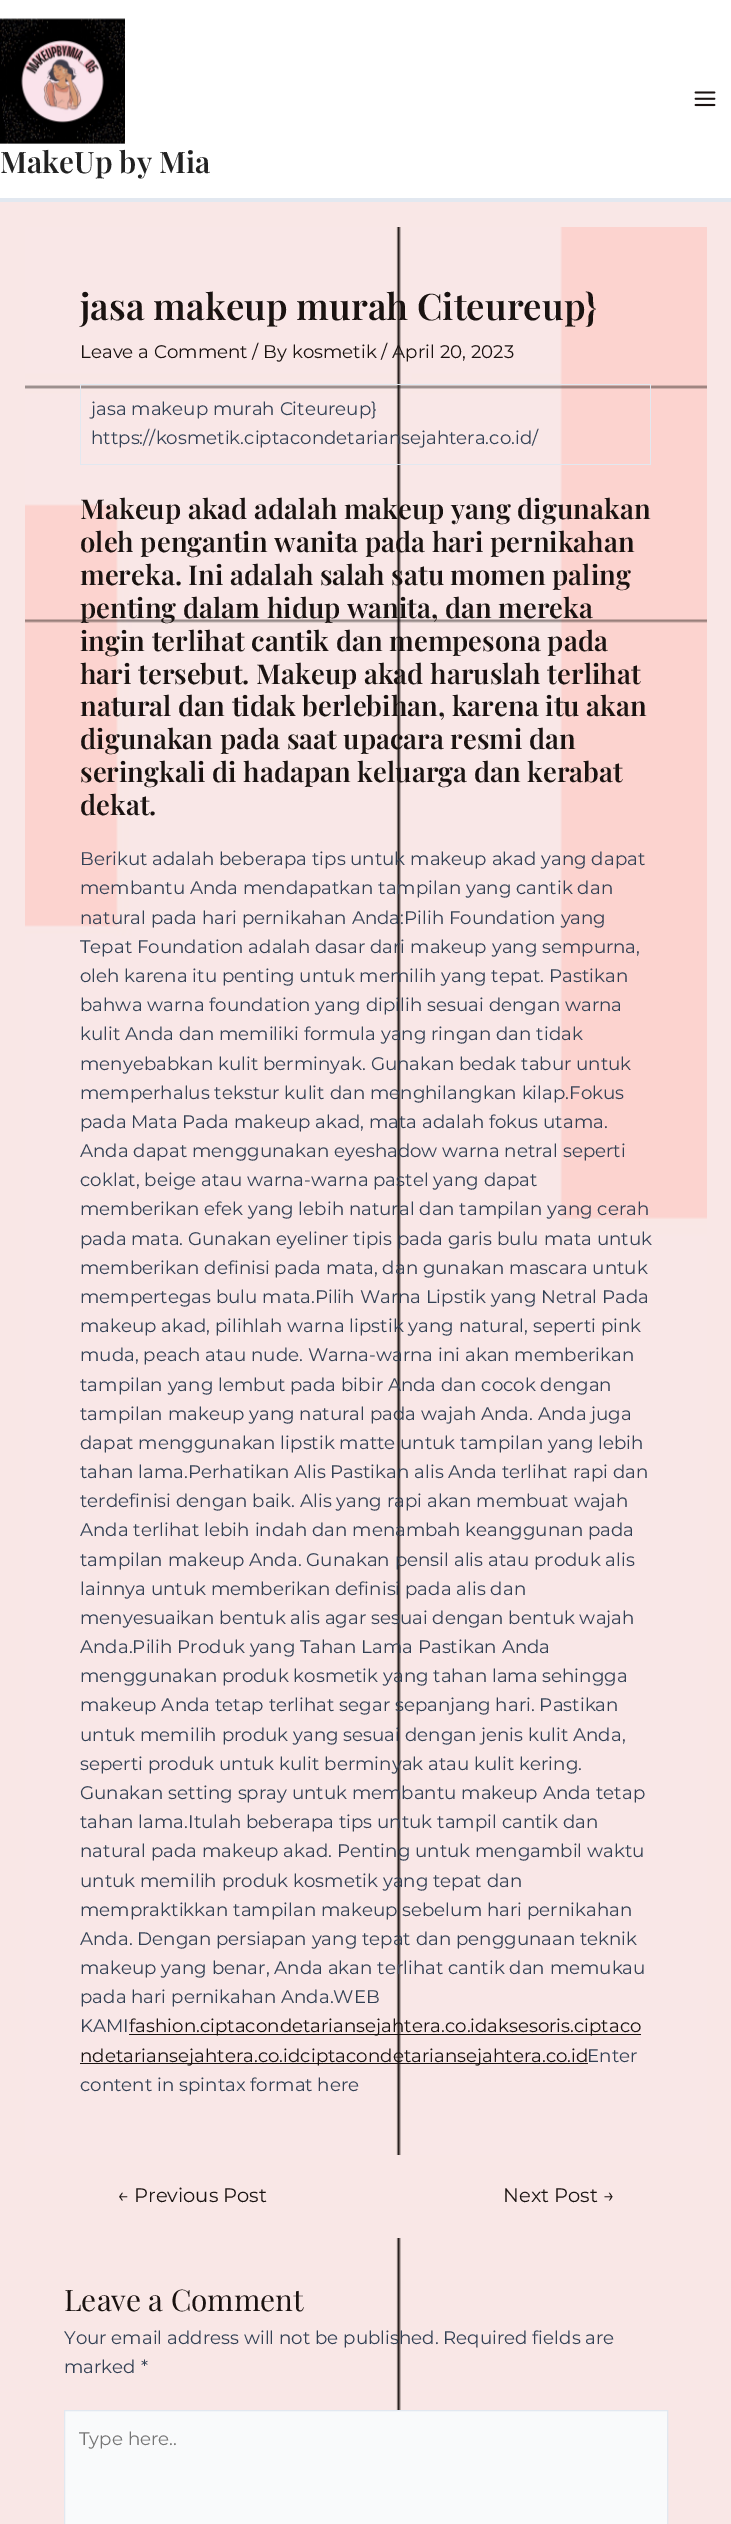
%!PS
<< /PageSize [731 2524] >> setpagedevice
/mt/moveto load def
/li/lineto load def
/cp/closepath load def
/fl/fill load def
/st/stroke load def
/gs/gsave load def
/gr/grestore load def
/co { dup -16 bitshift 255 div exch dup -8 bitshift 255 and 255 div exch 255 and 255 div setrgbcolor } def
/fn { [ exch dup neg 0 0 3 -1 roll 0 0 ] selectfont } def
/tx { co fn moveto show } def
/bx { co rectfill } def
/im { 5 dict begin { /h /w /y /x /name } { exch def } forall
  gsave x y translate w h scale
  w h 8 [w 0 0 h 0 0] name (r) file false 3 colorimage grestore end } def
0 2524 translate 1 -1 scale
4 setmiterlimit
0 0 731 2524 16#F9E7E6 bx
0 0 731 198 16#FFFFFF bx
0 198 731 4 16#E2E8F0 bx
(media/1.raw) 694 91 22 16 im
(media/2.raw) 0 18 125 126 im
(media/3.raw) 25 227 682 1928 im
80 384 571 1 16#E2E8F0 bx
80 384 1 81 16#E2E8F0 bx
650 385 1 80 16#E2E8F0 bx
81 464 570 1 16#E2E8F0 bx
129 2034 512 1 16#1A1311 bx
80 2063 508 1 16#1A1311 bx
(media/4.raw) 396 2238 5 172 im
16#F9FAFB co
64.5 2410.5 mt 667.5 2410.5 li 667.5 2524.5 li 64.5 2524.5 li cp gs fl gr
16#E2E8F0 co
st
(MakeUp by Mia) 0 173 /PlayfairDisplay-SemiBold 29.75 16#222222 tx
(jasa makeup murah Citeureup}) 80 320 /PlayfairDisplay-SemiBold 36.5 16#1A1311 tx
(Leave a Comment / By kosmetik / April 20, 2023) 80 358 /Montserrat-Regular 18.25 16#1A1311 tx
(jasa makeup murah Citeureup}) 91 415 /Montserrat-Regular 18.25 16#334155 tx
(https://kosmetik.ciptacondetariansejahtera.co.id/) 91 444 /Montserrat-Regular 18.25 16#334155 tx
(Makeup akad adalah makeup yang digunakan) 80 519 /PlayfairDisplay-SemiBold 27.4 16#1A1311 tx
(oleh pengantin wanita pada hari pernikahan) 80 552 /PlayfairDisplay-SemiBold 27.4 16#1A1311 tx
(mereka. Ini adalah salah satu momen paling) 80 585 /PlayfairDisplay-SemiBold 27.4 16#1A1311 tx
(penting dalam hidup wanita, dan mereka) 80 618 /PlayfairDisplay-SemiBold 27.4 16#1A1311 tx
(ingin terlihat cantik dan mempesona pada) 80 651 /PlayfairDisplay-SemiBold 27.4 16#1A1311 tx
(hari tersebut. Makeup akad haruslah terlihat) 80 684 /PlayfairDisplay-SemiBold 27.4 16#1A1311 tx
(natural dan tidak berlebihan, karena itu akan) 80 716 /PlayfairDisplay-SemiBold 27.4 16#1A1311 tx
(digunakan pada saat upacara resmi dan) 80 749 /PlayfairDisplay-SemiBold 27.4 16#1A1311 tx
(seringkali di hadapan keluarga dan kerabat) 80 782 /PlayfairDisplay-SemiBold 27.4 16#1A1311 tx
(dekat.) 80 815 /PlayfairDisplay-SemiBold 27.4 16#1A1311 tx
(Berikut adalah beberapa tips untuk makeup akad yang dapat) 80 865 /Montserrat-Regular 18.25 16#334155 tx
(membantu Anda mendapatkan tampilan yang cantik dan) 80 894 /Montserrat-Regular 18.25 16#334155 tx
(natural pada hari pernikahan Anda:Pilih Foundation yang) 80 924 /Montserrat-Regular 18.25 16#334155 tx
(Tepat Foundation adalah dasar dari makeup yang sempurna,) 80 953 /Montserrat-Regular 18.25 16#334155 tx
(oleh karena itu penting untuk memilih yang tepat. Pastikan) 80 982 /Montserrat-Regular 18.25 16#334155 tx
(bahwa warna foundation yang dipilih sesuai dengan warna) 80 1011 /Montserrat-Regular 18.25 16#334155 tx
(kulit Anda dan memiliki formula yang ringan dan tidak) 80 1040 /Montserrat-Regular 18.25 16#334155 tx
(menyebabkan kulit berminyak. Gunakan bedak tabur untuk) 80 1070 /Montserrat-Regular 18.25 16#334155 tx
(memperhalus tekstur kulit dan menghilangkan kilap.Fokus) 80 1099 /Montserrat-Regular 18.25 16#334155 tx
(pada Mata Pada makeup akad, mata adalah fokus utama.) 80 1128 /Montserrat-Regular 18.25 16#334155 tx
(Anda dapat menggunakan eyeshadow warna netral seperti) 80 1157 /Montserrat-Regular 18.25 16#334155 tx
(coklat, beige atau warna-warna pastel yang dapat) 80 1186 /Montserrat-Regular 18.25 16#334155 tx
(memberikan efek yang lebih natural dan tampilan yang cerah) 80 1215 /Montserrat-Regular 18.25 16#334155 tx
(pada mata. Gunakan eyeliner tipis pada garis bulu mata untuk) 80 1245 /Montserrat-Regular 18.25 16#334155 tx
(memberikan definisi pada mata, dan gunakan mascara untuk) 80 1274 /Montserrat-Regular 18.25 16#334155 tx
(mempertegas bulu mata.Pilih Warna Lipstik yang Netral Pada) 80 1303 /Montserrat-Regular 18.25 16#334155 tx
(makeup akad, pilihlah warna lipstik yang natural, seperti pink) 80 1332 /Montserrat-Regular 18.25 16#334155 tx
(muda, peach atau nude. Warna-warna ini akan memberikan) 80 1361 /Montserrat-Regular 18.25 16#334155 tx
(tampilan yang lembut pada bibir Anda dan cocok dengan) 80 1391 /Montserrat-Regular 18.25 16#334155 tx
(tampilan makeup yang natural pada wajah Anda. Anda juga) 80 1420 /Montserrat-Regular 18.25 16#334155 tx
(dapat menggunakan lipstik matte untuk tampilan yang lebih) 80 1449 /Montserrat-Regular 18.25 16#334155 tx
(tahan lama.Perhatikan Alis Pastikan alis Anda terlihat rapi dan) 80 1478 /Montserrat-Regular 18.25 16#334155 tx
(terdefinisi dengan baik. Alis yang rapi akan membuat wajah) 80 1507 /Montserrat-Regular 18.25 16#334155 tx
(Anda terlihat lebih indah dan menambah keanggunan pada) 80 1536 /Montserrat-Regular 18.25 16#334155 tx
(tampilan makeup Anda. Gunakan pensil alis atau produk alis) 80 1566 /Montserrat-Regular 18.25 16#334155 tx
(lainnya untuk memberikan definisi pada alis dan) 80 1595 /Montserrat-Regular 18.25 16#334155 tx
(menyesuaikan bentuk alis agar sesuai dengan bentuk wajah) 80 1624 /Montserrat-Regular 18.25 16#334155 tx
(Anda.Pilih Produk yang Tahan Lama Pastikan Anda) 80 1653 /Montserrat-Regular 18.25 16#334155 tx
(menggunakan produk kosmetik yang tahan lama sehingga) 80 1682 /Montserrat-Regular 18.25 16#334155 tx
(makeup Anda tetap terlihat segar sepanjang hari. Pastikan) 80 1711 /Montserrat-Regular 18.25 16#334155 tx
(untuk memilih produk yang sesuai dengan jenis kulit Anda,) 80 1741 /Montserrat-Regular 18.25 16#334155 tx
(seperti produk untuk kulit berminyak atau kulit kering.) 80 1770 /Montserrat-Regular 18.25 16#334155 tx
(Gunakan setting spray untuk membantu makeup Anda tetap) 80 1799 /Montserrat-Regular 18.25 16#334155 tx
(tahan lama.Itulah beberapa tips untuk tampil cantik dan) 80 1828 /Montserrat-Regular 18.25 16#334155 tx
(natural pada makeup akad. Penting untuk mengambil waktu) 80 1857 /Montserrat-Regular 18.25 16#334155 tx
(untuk memilih produk kosmetik yang tepat dan) 80 1887 /Montserrat-Regular 18.25 16#334155 tx
(mempraktikkan tampilan makeup sebelum hari pernikahan) 80 1916 /Montserrat-Regular 18.25 16#334155 tx
(Anda. Dengan persiapan yang tepat dan penggunaan teknik) 80 1945 /Montserrat-Regular 18.25 16#334155 tx
(makeup yang benar, Anda akan terlihat cantik dan memukau) 80 1974 /Montserrat-Regular 18.25 16#334155 tx
(pada hari pernikahan Anda.WEB) 80 2003 /Montserrat-Regular 18.25 16#334155 tx
(KAMI) 80 2032 /Montserrat-Regular 18.25 16#334155 tx
(fashion.ciptacondetariansejahtera.co.id) 129 2032 /Montserrat-Regular 18.25 16#1A1311 tx
(aksesoris.ciptaco) 487 2032 /Montserrat-Regular 18.25 16#1A1311 tx
(ndetariansejahtera.co.idciptacondetariansejahtera.co.id) 80 2062 /Montserrat-Regular 18.25 16#1A1311 tx
(Enter) 587 2062 /Montserrat-Regular 18.25 16#334155 tx
(content in spintax format here) 80 2091 /Montserrat-Regular 18.25 16#334155 tx
(← Previous Post) 117 2202 /Montserrat-Regular 19.5 16#1A1311 tx
(Next Post →) 503 2202 /Montserrat-Regular 19.5 16#1A1311 tx
(Leave a Comment) 64 2311 /PlayfairDisplay-Regular 29.75 16#1A1311 tx
(Your email address will not be published.) 64 2344 /Montserrat-Regular 18.25 16#334155 tx
(Required fields are) 443 2344 /Montserrat-Regular 18.25 16#334155 tx
(marked *) 64 2373 /Montserrat-Regular 18.25 16#334155 tx
(Type here..) 79 2445 /Montserrat-Regular 18.25 16#757575 tx
showpage
